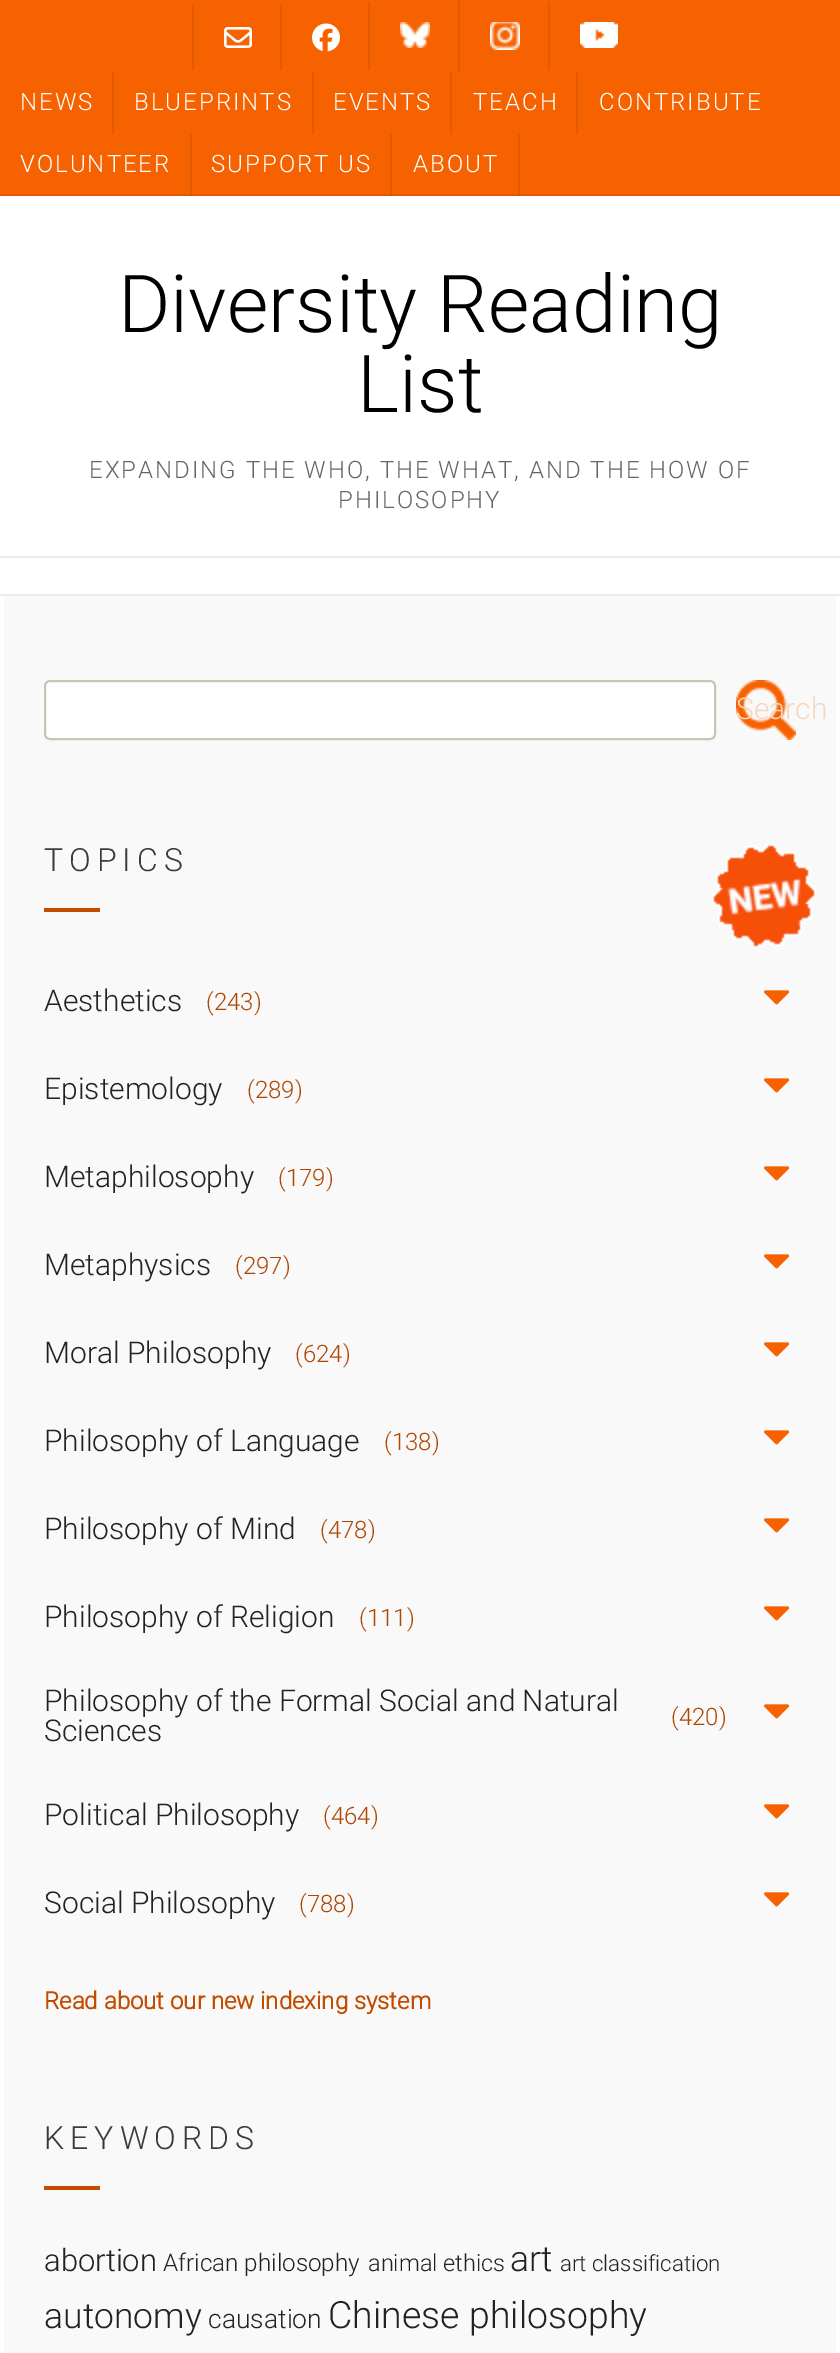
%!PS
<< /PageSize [840 2353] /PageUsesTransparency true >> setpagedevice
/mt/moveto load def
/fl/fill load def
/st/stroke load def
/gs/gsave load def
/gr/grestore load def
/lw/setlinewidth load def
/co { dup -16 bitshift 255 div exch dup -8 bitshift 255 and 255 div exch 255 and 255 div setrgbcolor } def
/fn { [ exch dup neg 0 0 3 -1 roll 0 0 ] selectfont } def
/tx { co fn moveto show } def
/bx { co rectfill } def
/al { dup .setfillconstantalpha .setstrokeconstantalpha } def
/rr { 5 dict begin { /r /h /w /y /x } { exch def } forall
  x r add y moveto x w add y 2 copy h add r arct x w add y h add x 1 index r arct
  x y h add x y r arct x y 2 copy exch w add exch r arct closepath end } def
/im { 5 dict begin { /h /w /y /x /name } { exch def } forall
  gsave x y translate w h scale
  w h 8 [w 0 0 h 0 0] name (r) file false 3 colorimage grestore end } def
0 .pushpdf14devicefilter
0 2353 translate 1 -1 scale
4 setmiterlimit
0 0 840 2353 16#FFFFFF bx
0 0 840 194 16#F76200 bx
0 194 840 2 16#E35A00 bx
192 4 2 66 16#E35A00 bx
(media/1.raw) 224 27 28 21 im
280 4 2 66 16#E35A00 bx
(media/2.raw) 312 23 28 29 im
368 2 2 68 16#E35A00 bx
(media/3.raw) 400 22 30 26 im
458 0 2 72 16#E35A00 bx
(media/4.raw) 490 22 30 28 im
548 2 2 68 16#E35A00 bx
(media/5.raw) 580 22 38 26 im
112 72 2 62 16#E35A00 bx
312 72 2 62 16#E35A00 bx
450 72 2 62 16#E35A00 bx
576 72 2 62 16#E35A00 bx
0.08 al
190 134 2 62 16#000000 bx
518 134 2 62 16#000000 bx
390 134 2 62 16#000000 bx
1 al
0 594 840 2 16#EBEBEB bx
0 556 840 2 16#EBEBEB bx
4 596 832 1757 16#F9F9F9 bx
16#FFFFFF co
45 681 670 58 5 rr gs fl gr
16#CCC4B7 co
2 lw
st
(media/6.raw) 736 680 60 60 im
(media/7.raw) 712 844 104 104 im
44 908 56 4 16#C24C00 bx
(media/8.raw) 764 990 26 15 im
(media/8.raw) 764 1078 26 15 im
(media/8.raw) 764 1166 26 15 im
(media/8.raw) 764 1254 26 15 im
(media/8.raw) 764 1342 26 15 im
(media/8.raw) 764 1430 26 15 im
(media/8.raw) 764 1518 26 15 im
(media/8.raw) 764 1606 26 15 im
(media/8.raw) 764 1704 26 15 im
(media/8.raw) 764 1804 26 15 im
(media/8.raw) 764 1892 26 15 im
44 2186 56 4 16#C24C00 bx
/Roboto-Light 24 fn
16#FFFFFF co
20 110 mt 2 0 (NEWS) ashow
134 110 mt 2 0 (BLUEPRINTS) ashow
333 110 mt 2 0 (EVENTS) ashow
473 110 mt 2 0 (TEACH) ashow
599 110 mt 2 0 (CONTRIBUTE) ashow
20 172 mt 2 0 (VOLUNTEER) ashow
211 172 mt 2 0 (SUPPORT US) ashow
413 172 mt 2 0 (ABOUT) ashow
(Diversity Reading) 118 332 /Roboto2-Light 80 16#000000 tx
(List) 357 412 /Roboto2-Light 80 16#000000 tx
/Roboto2-Light 24 fn
16#656565 co
89 478 mt 2 0 (EXPANDING THE WHO, THE WHAT, AND THE HOW OF) ashow
338 508 mt 2 0 (PHILOSOPHY) ashow
(Search) 736 719 /Roboto-Light 30 16#F9D5BE tx
/Roboto-Light 32 fn
16#3A3A3A co
44 871 mt 6 0 (TOPICS) ashow
(Aesthetics) 44 1011 /Roboto-Light 30 16#222222 tx
(\(243\)) 206 1010 /Roboto-Light 24 16#AF4602 tx
(Epistemology) 44 1099 /Roboto-Light 30 16#222222 tx
(\(289\)) 247 1098 /Roboto-Light 24 16#AF4602 tx
(Metaphilosophy) 44 1187 /Roboto-Light 30 16#222222 tx
(\(179\)) 278 1186 /Roboto-Light 24 16#AF4602 tx
(Metaphysics) 44 1275 /Roboto-Light 30 16#222222 tx
(\(297\)) 235 1274 /Roboto-Light 24 16#AF4602 tx
(Moral Philosophy) 44 1363 /Roboto-Light 30 16#222222 tx
(\(624\)) 295 1362 /Roboto-Light 24 16#AF4602 tx
(Philosophy of Language) 44 1451 /Roboto-Light 30 16#222222 tx
(\(138\)) 384 1450 /Roboto-Light 24 16#AF4602 tx
(Philosophy of Mind) 44 1539 /Roboto-Light 30 16#222222 tx
(\(478\)) 320 1538 /Roboto-Light 24 16#AF4602 tx
(Philosophy of Religion) 44 1627 /Roboto-Light 30 16#222222 tx
(\(111\)) 359 1626 /Roboto-Light 24 16#AF4602 tx
(Philosophy of the Formal Social and Natural) 44 1711 /Roboto-Light 30 16#222222 tx
(Sciences) 44 1741 /Roboto-Light 30 16#222222 tx
(\(420\)) 671 1725 /Roboto-Light 24 16#AF4602 tx
(Political Philosophy) 44 1825 /Roboto-Light 30 16#222222 tx
(\(464\)) 323 1824 /Roboto-Light 24 16#AF4602 tx
(Social Philosophy) 44 1913 /Roboto-Light 30 16#222222 tx
(\(788\)) 299 1912 /Roboto-Light 24 16#AF4602 tx
(Read about our new indexing system) 44 2009 /Roboto-Bold 24 16#C24C00 tx
/Roboto-Light 32 fn
16#3A3A3A co
44 2149 mt 6 0 (KEYWORDS) ashow
(abortion) 44 2271 /Roboto-Light 31 16#222222 tx
(African philosophy) 163 2271 /Roboto-Light 24.25 16#222222 tx
(animal ethics) 368 2271 /Roboto-Light 23.5 16#222222 tx
(art) 510 2271 /Roboto-Light 35.5 16#222222 tx
(art classification) 560 2271 /Roboto-Light 22.25 16#222222 tx
(autonomy) 44 2328 /Roboto-Light 35.5 16#222222 tx
(causation) 208 2328 /Roboto-Light 26.5 16#222222 tx
(Chinese philosophy) 328 2328 /Roboto-Light 37.5 16#222222 tx
.poppdf14devicefilter showpage
